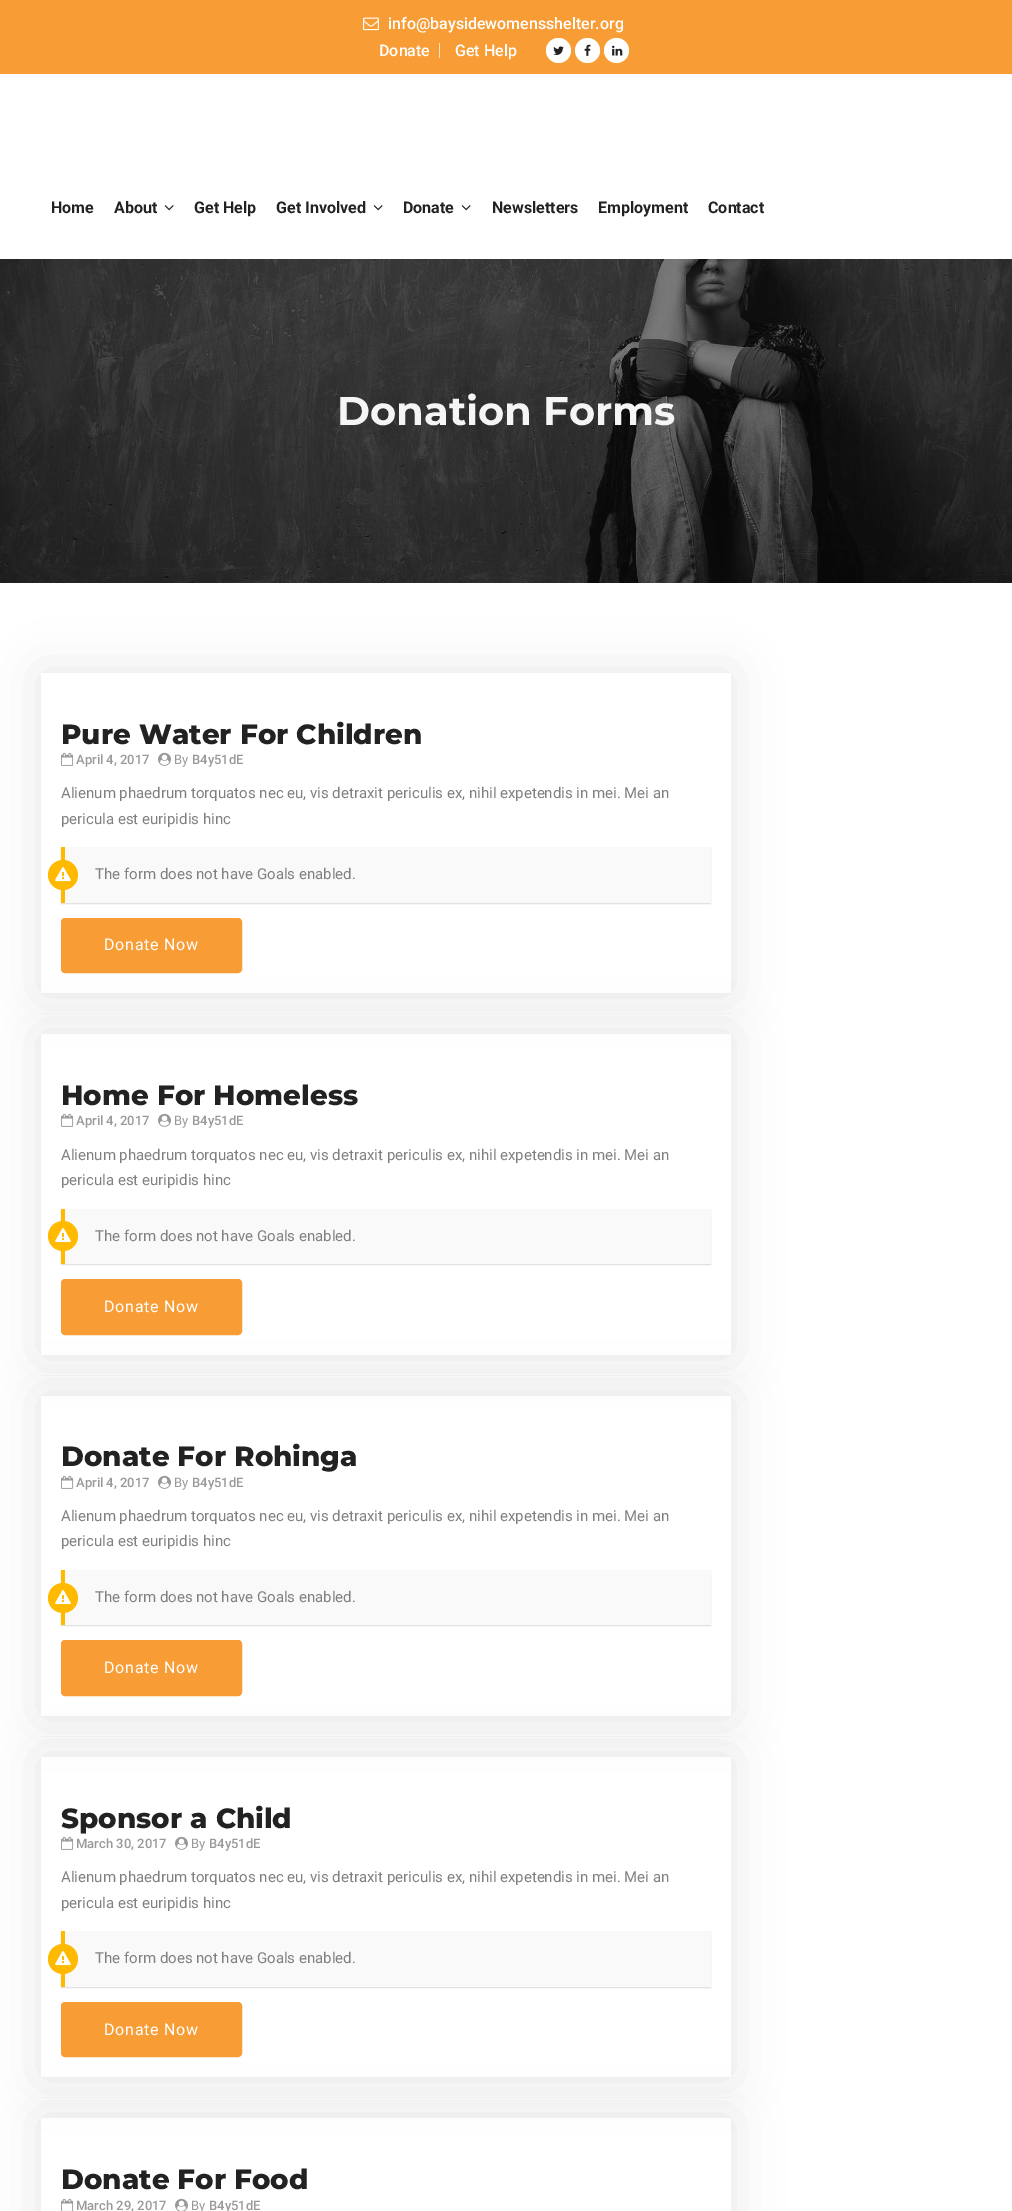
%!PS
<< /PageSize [1012 2211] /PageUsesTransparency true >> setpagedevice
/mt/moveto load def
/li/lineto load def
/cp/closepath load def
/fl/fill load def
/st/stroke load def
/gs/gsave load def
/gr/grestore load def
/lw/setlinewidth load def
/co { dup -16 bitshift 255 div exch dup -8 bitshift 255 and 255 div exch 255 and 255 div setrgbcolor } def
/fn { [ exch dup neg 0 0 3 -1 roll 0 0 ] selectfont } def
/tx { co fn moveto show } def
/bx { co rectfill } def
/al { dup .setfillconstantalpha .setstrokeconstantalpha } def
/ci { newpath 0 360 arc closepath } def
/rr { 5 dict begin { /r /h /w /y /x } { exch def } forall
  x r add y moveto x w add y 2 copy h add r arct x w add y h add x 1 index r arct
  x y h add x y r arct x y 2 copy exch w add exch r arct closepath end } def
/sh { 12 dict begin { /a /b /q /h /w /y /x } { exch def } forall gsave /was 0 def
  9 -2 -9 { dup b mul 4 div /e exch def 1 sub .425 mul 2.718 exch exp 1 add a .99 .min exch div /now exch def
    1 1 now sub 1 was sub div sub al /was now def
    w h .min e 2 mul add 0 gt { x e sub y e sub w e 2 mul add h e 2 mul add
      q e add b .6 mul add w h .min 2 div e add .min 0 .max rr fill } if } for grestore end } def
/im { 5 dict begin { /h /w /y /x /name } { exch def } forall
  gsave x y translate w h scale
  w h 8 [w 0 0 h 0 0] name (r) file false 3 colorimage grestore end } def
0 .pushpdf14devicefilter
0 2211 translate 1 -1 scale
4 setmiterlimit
0 0 1012 2211 16#FFFFFF bx
0 0 1012 74 16#F89D35 bx
(media/1.raw) 363 17 16 14 im
439 43 1 15 16#FDE2C2 bx
16#FFFFFF co
558.5 50.5 12.5 ci fl
(media/2.raw) 553 46 11 9 im
587.5 50.5 12.5 ci fl
(media/3.raw) 584 44 7 12 im
616.5 50.5 12.5 ci fl
(media/4.raw) 612 45 11 11 im
(media/5.raw) 164 205 10 6 im
(media/5.raw) 373 205 10 6 im
(media/5.raw) 461 205 10 6 im
(media/6.raw) 0 259 1012 324 im
41 1013 690 1 16#F8F8F8 bx
gs
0 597 mt 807 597 li 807 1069 li 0 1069 li cp 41 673 mt 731 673 li 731 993 li 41 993 li cp eoclip newpath
16#050505 co
41 673 690 320 0 25 .1 sh
gr
(media/7.raw) 61 752 13 14 im
(media/8.raw) 158 752 13 14 im
16#000000 co
61 848 650 56 0 .5 .12 sh
65 847 646 56 16#F9F9F9 bx
61 847 4 56 16#FFBA00 bx
63 875 15 ci fl
(media/9.raw) 55 867 16 15 im
41 1375 690 1 16#F8F8F8 bx
gs
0 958 mt 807 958 li 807 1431 li 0 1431 li cp 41 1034 mt 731 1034 li 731 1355 li 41 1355 li cp eoclip newpath
16#050505 co
41 1034 690 321 0 25 .1 sh
gr
16#F89D35 co
62.5 919.5 178 52 2.5 rr gs fl gr
3 lw
st
(media/7.raw) 61 1113 13 14 im
(media/8.raw) 158 1113 13 14 im
16#000000 co
61 1210 650 55 0 .5 .12 sh
65 1209 646 55 16#F9F9F9 bx
61 1209 4 55 16#FFBA00 bx
63 1236 15 ci fl
(media/9.raw) 55 1228 16 15 im
41 1736 690 1 16#F8F8F8 bx
gs
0 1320 mt 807 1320 li 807 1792 li 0 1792 li cp 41 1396 mt 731 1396 li 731 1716 li 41 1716 li cp eoclip newpath
16#050505 co
41 1396 690 320 0 25 .1 sh
gr
16#F89D35 co
62.5 1280.5 178 53 2.5 rr gs fl gr
st
(media/7.raw) 61 1475 13 14 im
(media/8.raw) 158 1475 13 14 im
16#000000 co
61 1571 650 55 0 .5 .12 sh
65 1570 646 55 16#F9F9F9 bx
61 1570 4 55 16#FFBA00 bx
63 1598 15 ci fl
(media/9.raw) 55 1590 16 15 im
41 2097 690 1 16#F8F8F8 bx
gs
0 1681 mt 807 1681 li 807 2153 li 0 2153 li cp 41 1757 mt 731 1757 li 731 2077 li 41 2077 li cp eoclip newpath
16#050505 co
41 1757 690 320 0 25 .1 sh
gr
16#F89D35 co
62.5 1641.5 178 53 2.5 rr gs fl gr
st
(media/7.raw) 61 1836 13 14 im
(media/8.raw) 175 1836 13 14 im
16#000000 co
61 1932 650 56 0 .5 .12 sh
65 1931 646 56 16#F9F9F9 bx
61 1931 4 56 16#FFBA00 bx
63 1959 15 ci fl
(media/9.raw) 55 1951 16 15 im
gs
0 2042 mt 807 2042 li 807 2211 li 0 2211 li cp 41 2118 mt 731 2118 li 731 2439 li 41 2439 li cp eoclip newpath
16#050505 co
41 2118 690 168 0 25 .1 sh
gr
16#F89D35 co
62.5 2003.5 178 52 2.5 rr gs fl gr
st
(media/10.raw) 61 2198 13 13 im
(media/11.raw) 175 2198 13 13 im
(info@baysidewomensshelter.org) 388 29 /Roboto-Medium 16 16#FFFFFF tx
(Donate) 379 56 /Roboto-Medium 16 16#FFFFFF tx
(Get Help) 455 56 /Roboto-Medium 16 16#FFFFFF tx
(Home) 51 213 /Roboto-Bold 16 16#222222 tx
(About) 114 213 /Roboto-Bold 16 16#222222 tx
(Get Help) 194 213 /Roboto-Bold 16 16#222222 tx
(Get Involved) 276 213 /Roboto-Bold 16 16#222222 tx
(Donate) 403 213 /Roboto-Bold 16 16#222222 tx
(Newsletters) 492 213 /Roboto-Bold 16 16#222222 tx
(Employment) 598 213 /Roboto-Bold 16 16#222222 tx
(Contact) 708 213 /Roboto-Bold 16 16#222222 tx
(Donation Forms) 337 425 /Montserrat-Bold 40 16#F5F5F5 tx
(Pure Water For Children) 61 744 /Montserrat-ExtraBold 27.75 16#222222 tx
(April 4, 2017) 76 764 /Roboto-Medium 13 16#999999 tx
(By) 174 764 /Roboto-Regular 13 16#999999 tx
(B4y51dE) 192 764 /Roboto-Medium 13 16#999999 tx
(Alienum phaedrum torquatos nec eu, vis detraxit periculis ex, nihil expetendis in mei. Mei an) 61 798 /Roboto-Regular 15 16#808080 tx
(pericula est euripidis hinc) 61 824 /Roboto-Regular 15 16#808080 tx
(The form does not have Goals enabled.) 95 879 /Roboto-Regular 15 16#808080 tx
/Roboto-Regular 16 fn
16#FFFFFF co
104 950 mt .75 0 (Donate Now) ashow
(Home For Homeless) 61 1105 /Montserrat-ExtraBold 27.75 16#222222 tx
(April 4, 2017) 76 1125 /Roboto-Medium 13 16#999999 tx
(By) 174 1125 /Roboto-Regular 13 16#999999 tx
(B4y51dE) 192 1125 /Roboto-Medium 13 16#999999 tx
(Alienum phaedrum torquatos nec eu, vis detraxit periculis ex, nihil expetendis in mei. Mei an) 61 1160 /Roboto-Regular 15 16#808080 tx
(pericula est euripidis hinc) 61 1185 /Roboto-Regular 15 16#808080 tx
(The form does not have Goals enabled.) 95 1241 /Roboto-Regular 15 16#808080 tx
/Roboto-Regular 16 fn
16#FFFFFF co
104 1312 mt .75 0 (Donate Now) ashow
(Donate For Rohinga) 61 1466 /Montserrat-ExtraBold 27.75 16#222222 tx
(April 4, 2017) 76 1487 /Roboto-Medium 13 16#999999 tx
(By) 174 1487 /Roboto-Regular 13 16#999999 tx
(B4y51dE) 192 1487 /Roboto-Medium 13 16#999999 tx
(Alienum phaedrum torquatos nec eu, vis detraxit periculis ex, nihil expetendis in mei. Mei an) 61 1521 /Roboto-Regular 15 16#808080 tx
(pericula est euripidis hinc) 61 1546 /Roboto-Regular 15 16#808080 tx
(The form does not have Goals enabled.) 95 1602 /Roboto-Regular 15 16#808080 tx
/Roboto-Regular 16 fn
16#FFFFFF co
104 1673 mt .75 0 (Donate Now) ashow
(Sponsor a Child) 61 1828 /Montserrat-ExtraBold 27.75 16#222222 tx
(March 30, 2017) 76 1848 /Roboto-Medium 13 16#999999 tx
(By) 191 1848 /Roboto-Regular 13 16#999999 tx
(B4y51dE) 209 1848 /Roboto-Medium 13 16#999999 tx
(Alienum phaedrum torquatos nec eu, vis detraxit periculis ex, nihil expetendis in mei. Mei an) 61 1882 /Roboto-Regular 15 16#808080 tx
(pericula est euripidis hinc) 61 1908 /Roboto-Regular 15 16#808080 tx
(The form does not have Goals enabled.) 95 1963 /Roboto-Regular 15 16#808080 tx
/Roboto-Regular 16 fn
16#FFFFFF co
104 2035 mt .75 0 (Donate Now) ashow
(Donate For Food) 61 2189 /Montserrat-ExtraBold 27.75 16#222222 tx
(March 29, 2017) 76 2210 /Roboto-Medium 13 16#999999 tx
(By) 191 2210 /Roboto-Regular 13 16#999999 tx
(B4y51dE) 209 2210 /Roboto-Medium 13 16#999999 tx
.poppdf14devicefilter showpage
